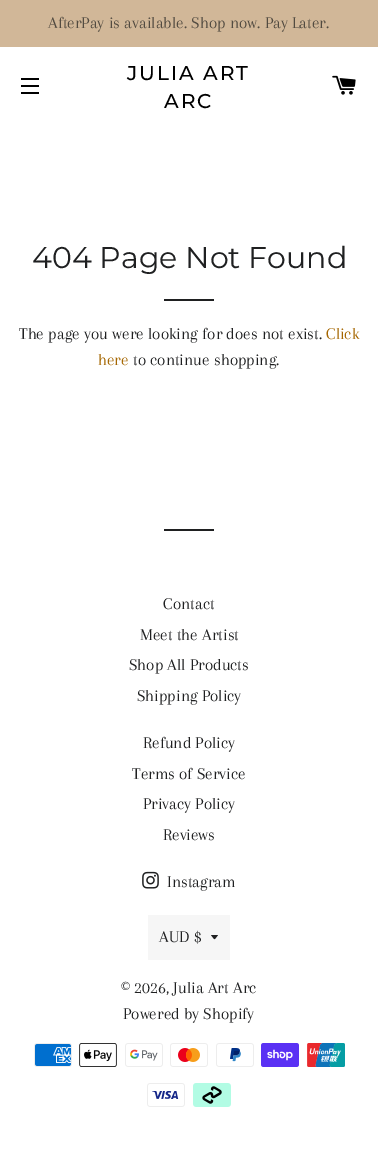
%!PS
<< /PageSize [378 1166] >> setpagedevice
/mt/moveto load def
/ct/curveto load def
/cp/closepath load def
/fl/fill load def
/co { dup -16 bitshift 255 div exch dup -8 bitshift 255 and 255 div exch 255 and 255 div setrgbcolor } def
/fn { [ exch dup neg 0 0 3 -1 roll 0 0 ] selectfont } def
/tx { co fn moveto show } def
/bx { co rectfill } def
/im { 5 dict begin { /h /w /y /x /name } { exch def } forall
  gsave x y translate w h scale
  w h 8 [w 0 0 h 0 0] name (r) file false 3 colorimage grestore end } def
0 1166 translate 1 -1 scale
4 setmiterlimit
0 0 378 1166 16#FFFFFF bx
0 0 378 47 16#D1B798 bx
21 78 18 2 16#000000 bx
21 85 18 2 16#000000 bx
21 92 18 2 16#000000 bx
(media/1.raw) 332 75 24 20 im
164 299 50 2 16#1F2021 bx
164 529 50 2 16#1F2021 bx
(media/2.raw) 142 871 17 18 im
148 915 82 45 16#F6F6F6 bx
16#1F2021 co
211 935 mt 215.5 940.5 213.5 940.5 218 935 ct cp fl
(media/3.raw) 34 1043 38 24 im
(media/4.raw) 79 1043 38 24 im
(media/5.raw) 125 1043 38 24 im
(media/6.raw) 170 1043 38 24 im
(media/7.raw) 216 1043 38 24 im
(media/8.raw) 261 1043 38 24 im
(media/9.raw) 307 1043 38 24 im
(media/10.raw) 147 1083 38 24 im
(media/11.raw) 193 1083 38 24 im
(AfterPay is available. Shop now. Pay Later.) 48 28 /Arapey-Regular 17 16#524B41 tx
/Montserrat-Medium 20 fn
16#000000 co
127 80 mt 2 0 (JULIA ART) ashow
164 108 mt 2 0 (ARC) ashow
(404 Page Not Found) 32 268 /Montserrat-Regular 30 16#1F2021 tx
(The page you were looking for does not exist.) 19 339 /Arapey-Regular 17 16#1F2021 tx
(Click) 326 339 /Arapey-Regular 17 16#A56600 tx
(here) 98 365 /Arapey-Regular 17 16#A56600 tx
(to continue shopping.) 133 365 /Arapey-Regular 17 16#1F2021 tx
(Contact) 163 609 /Arapey-Regular 17 16#1F2021 tx
(Meet the Artist) 140 640 /Arapey-Regular 17 16#1F2021 tx
(Shop All Products) 129 670 /Arapey-Regular 17 16#1F2021 tx
(Shipping Policy) 137 701 /Arapey-Regular 17 16#1F2021 tx
(Refund Policy) 143 748 /Arapey-Regular 17 16#1F2021 tx
(Terms of Service) 132 779 /Arapey-Regular 17 16#1F2021 tx
(Privacy Policy) 143 809 /Arapey-Regular 17 16#1F2021 tx
(Reviews) 163 840 /Arapey-Regular 17 16#1F2021 tx
(Instagram) 167 887 /Arapey-Regular 17 16#1F2021 tx
(AUD $) 159 942 /Arapey-Regular 17 16#1F2021 tx
(© 2026, Julia Art Arc) 121 993 /Arapey-Regular 17 16#1F2021 tx
(Powered by Shopify) 123 1019 /Arapey-Regular 17 16#1F2021 tx
showpage
